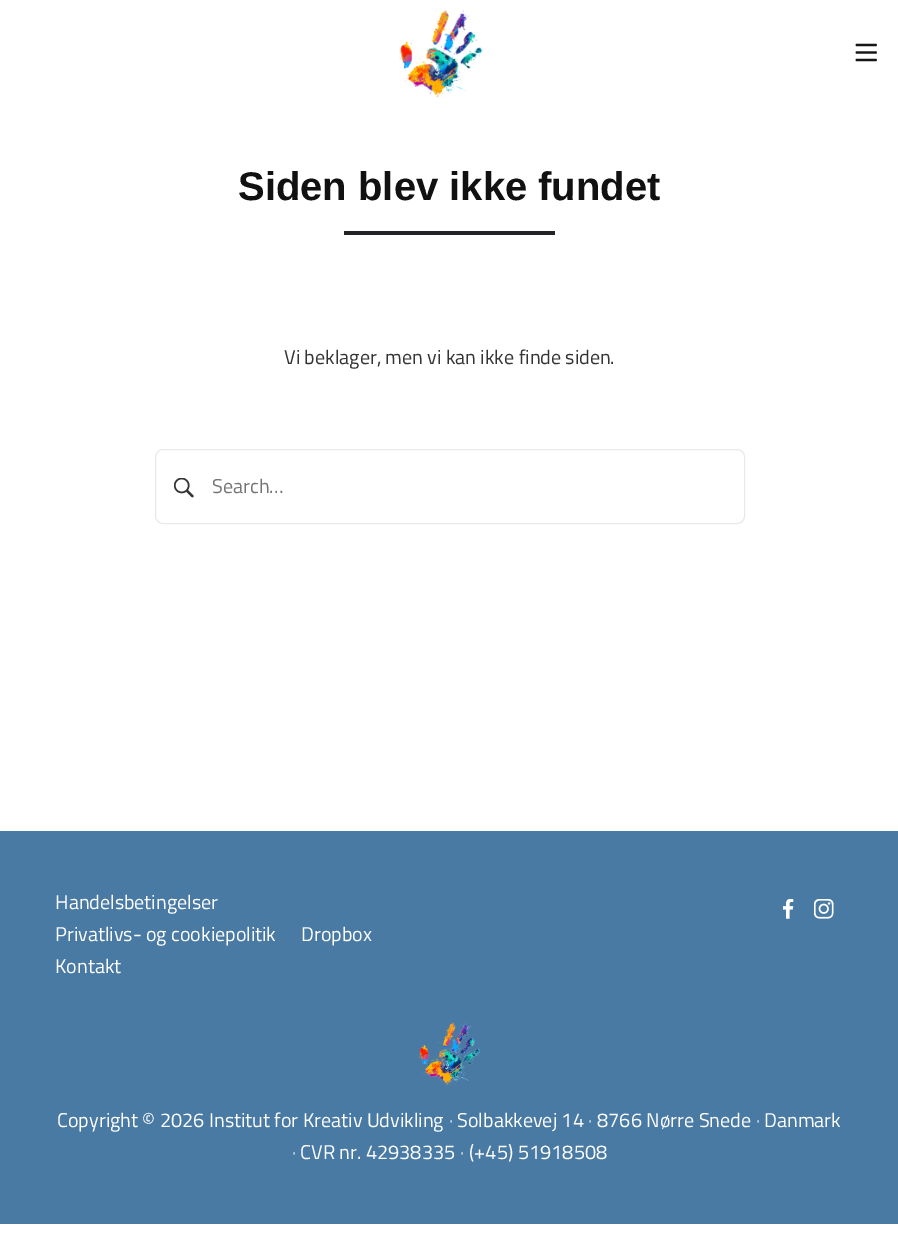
%!PS
<< /PageSize [898 1257] >> setpagedevice
/st/stroke load def
/co { dup -16 bitshift 255 div exch dup -8 bitshift 255 and 255 div exch 255 and 255 div setrgbcolor } def
/fn { [ exch dup neg 0 0 3 -1 roll 0 0 ] selectfont } def
/tx { co fn moveto show } def
/bx { co rectfill } def
/rr { 5 dict begin { /r /h /w /y /x } { exch def } forall
  x r add y moveto x w add y 2 copy h add r arct x w add y h add x 1 index r arct
  x y h add x y r arct x y 2 copy exch w add exch r arct closepath end } def
/im { 5 dict begin { /h /w /y /x /name } { exch def } forall
  gsave x y translate w h scale
  w h 8 [w 0 0 h 0 0] name (r) file false 3 colorimage grestore end } def
0 1257 translate 1 -1 scale
4 setmiterlimit
0 0 898 1257 16#FFFFFF bx
(media/1.raw) 399 10 84 88 im
(media/2.raw) 855 43 22 19 im
344 231 211 4 16#232328 bx
16#E9E9E9 co
155.5 449.5 589 74 7.5 rr st
(media/3.raw) 174 478 20 20 im
0 831 898 393 16#497AA4 bx
(media/4.raw) 783 899 11 20 im
(media/5.raw) 814 899 20 20 im
(media/6.raw) 419 1022 61 63 im
(Siden blev ikke fundet) 238 200 /LiberationSans-Bold 40 16#111111 tx
(Vi beklager, men vi kan ikke finde siden.) 284 364 /TitilliumWeb-Regular 20 16#343434 tx
(Search…) 212 493 /TitilliumWeb-Regular 20 16#757575 tx
(Handelsbetingelser) 55 909 /TitilliumWeb-Regular 20 16#FFFFFF tx
(Privatlivs- og cookiepolitik) 55 941 /TitilliumWeb-Regular 20 16#FFFFFF tx
(Dropbox) 301 941 /TitilliumWeb-Regular 20 16#FFFFFF tx
(Kontakt) 55 973 /TitilliumWeb-Regular 20 16#FFFFFF tx
(Copyright © 2026 Institut for Kreativ Udvikling) 57 1127 /TitilliumWeb-Regular 20 16#FFFFFF tx
(·) 449 1127 /TitilliumWeb-Regular 20 16#C3D3E1 tx
(Solbakkevej 14) 457 1127 /TitilliumWeb-Regular 20 16#FFFFFF tx
(·) 588 1127 /TitilliumWeb-Regular 20 16#C3D3E1 tx
(8766 Nørre Snede) 597 1127 /TitilliumWeb-Regular 20 16#FFFFFF tx
(·) 756 1127 /TitilliumWeb-Regular 20 16#C3D3E1 tx
(Danmark) 764 1127 /TitilliumWeb-Regular 20 16#FFFFFF tx
(·) 292 1159 /TitilliumWeb-Regular 20 16#C3D3E1 tx
(CVR nr. 42938335) 300 1159 /TitilliumWeb-Regular 20 16#FFFFFF tx
(·) 460 1159 /TitilliumWeb-Regular 20 16#C3D3E1 tx
(\(+45\) 51918508) 469 1159 /TitilliumWeb-Regular 20 16#FFFFFF tx
showpage
